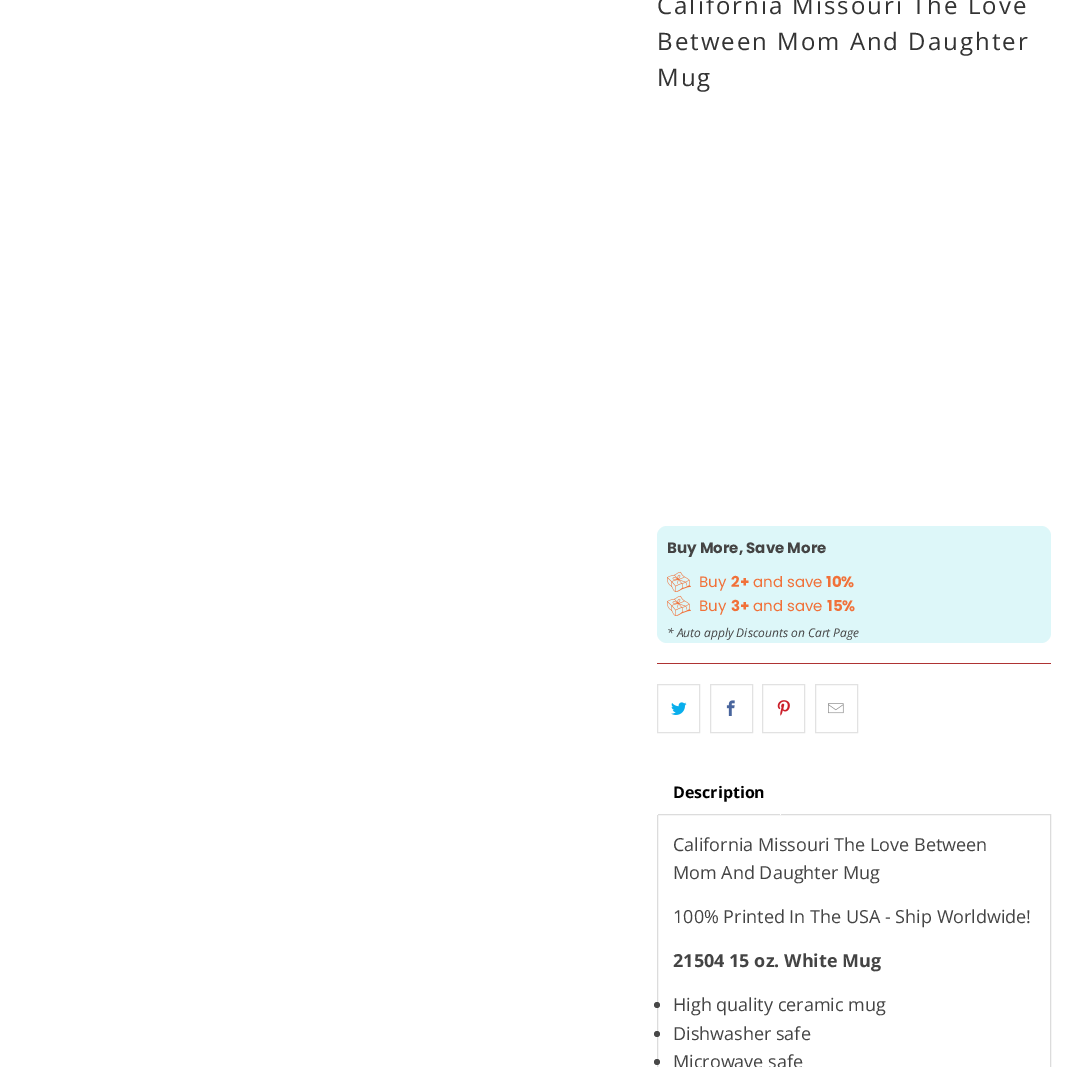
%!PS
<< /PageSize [1088 1067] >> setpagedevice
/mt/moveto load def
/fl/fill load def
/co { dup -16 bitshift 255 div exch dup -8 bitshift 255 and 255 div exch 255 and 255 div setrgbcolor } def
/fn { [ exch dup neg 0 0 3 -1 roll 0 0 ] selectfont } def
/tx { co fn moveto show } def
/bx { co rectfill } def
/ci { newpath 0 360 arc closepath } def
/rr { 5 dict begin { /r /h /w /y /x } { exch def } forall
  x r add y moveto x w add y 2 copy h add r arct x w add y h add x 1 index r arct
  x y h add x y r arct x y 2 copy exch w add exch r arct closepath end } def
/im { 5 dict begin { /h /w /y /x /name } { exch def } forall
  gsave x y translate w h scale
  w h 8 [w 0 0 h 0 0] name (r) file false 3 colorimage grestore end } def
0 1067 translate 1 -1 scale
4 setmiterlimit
0 0 1088 1067 16#FFFFFF bx
16#DDF7F9 co
657 526 394 117 10 rr fl
(media/1.raw) 667 571 24 21 im
(media/1.raw) 667 595 24 21 im
657 663 394 1 16#AE3333 bx
16#E2E2E2 co
657.5 684.5 42 48 rectstroke
(media/2.raw) 671 702 16 13 im
710.5 684.5 42 48 rectstroke
(media/3.raw) 726 700 9 16 im
762.5 684.5 42 48 rectstroke
(media/4.raw) 777 700 13 16 im
815.5 684.5 42 48 rectstroke
(media/5.raw) 828 703 16 11 im
16#DCDCDC co
657.5 814.5 393 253 rectstroke
780 814 1 1 16#FFFFFF bx
657 814 1 1 16#FFFFFF bx
16#484848 co
657 1005 3 ci fl
657 1034 3 ci fl
657 1062 3 ci fl
/OpenSans-Regular 24 fn
16#333333 co
657 14 mt 2 0 (California Missouri The Love) ashow
657 50 mt 2 0 (Between Mom And Daughter) ashow
657 86 mt 2 0 (Mug) ashow
(Buy More, Save More) 667 553 /Poppins-Bold 15 16#444444 tx
(Buy) 699 587 /Poppins-Regular 15 16#F17139 tx
(2+) 731 587 /Poppins-Bold 15 16#F17139 tx
(and save) 753 587 /Poppins-Regular 15 16#F17139 tx
(10%) 826 587 /Poppins-Bold 15 16#F17139 tx
(Buy) 699 611 /Poppins-Regular 15 16#F17139 tx
(3+) 731 611 /Poppins-Bold 15 16#F17139 tx
(and save) 753 611 /Poppins-Regular 15 16#F17139 tx
(15%) 827 611 /Poppins-Bold 15 16#F17139 tx
(* Auto apply Discounts on Cart Page) 667 637 /OpenSans-Italic 12 16#444444 tx
(Description) 673 798 /OpenSans-Bold 16 16#000000 tx
(California Missouri The Love Between) 673 851 /OpenSans-Regular 18 16#444444 tx
(Mom And Daughter Mug) 673 879 /OpenSans-Regular 18 16#444444 tx
(100% Printed In The USA - Ship Worldwide!) 673 923 /OpenSans-Regular 18 16#444444 tx
(21504 15 oz. White Mug) 673 967 /OpenSans-Bold 18 16#444444 tx
(High quality ceramic mug) 673 1011 /OpenSans-Regular 18 16#444444 tx
(Dishwasher safe) 673 1040 /OpenSans-Regular 18 16#444444 tx
(Microwave safe) 673 1068 /OpenSans-Regular 18 16#444444 tx
showpage
